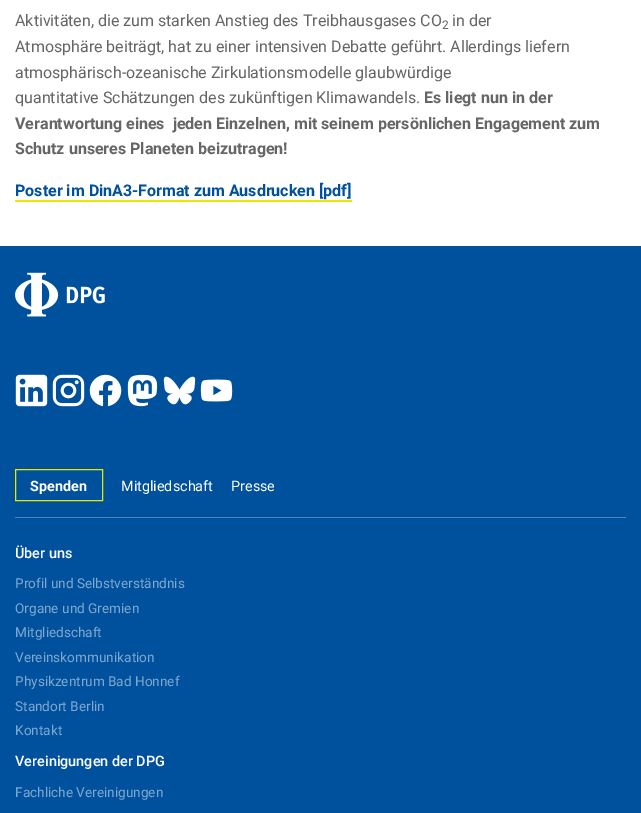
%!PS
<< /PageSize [641 813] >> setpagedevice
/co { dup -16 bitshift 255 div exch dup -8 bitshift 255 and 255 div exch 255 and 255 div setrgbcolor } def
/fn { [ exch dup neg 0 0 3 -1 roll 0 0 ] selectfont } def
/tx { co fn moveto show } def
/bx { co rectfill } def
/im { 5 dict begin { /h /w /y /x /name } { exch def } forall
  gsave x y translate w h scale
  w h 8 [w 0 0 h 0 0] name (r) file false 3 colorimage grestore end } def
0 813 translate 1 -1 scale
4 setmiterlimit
0 0 641 813 16#FFFFFF bx
15 200 337 2 16#E8E900 bx
0 246 641 567 16#00519D bx
15 517 611 1 16#4D85BA bx
(media/1.raw) 15 272 90 45 im
(media/2.raw) 15 374 33 33 im
(media/3.raw) 52 374 33 33 im
(media/4.raw) 89 374 33 33 im
(media/5.raw) 127 374 31 33 im
(media/6.raw) 163 376 33 29 im
(media/7.raw) 200 379 33 23 im
16#E8E900 co
15.5 469.5 87 31 rectstroke
(Aktivitäten, die zum starken Anstieg des Treibhausgases CO) 15 26 /Roboto-Regular 16 16#666666 tx
(2) 442 29 /Roboto-Regular 12 16#666666 tx
(in der) 452 26 /Roboto-Regular 16 16#666666 tx
(Atmosphäre beiträgt, hat zu einer intensiven Debatte geführt. Allerdings liefern) 15 52 /Roboto-Regular 16 16#666666 tx
(atmosphärisch-ozeanische Zirkulationsmodelle glaubwürdige) 15 78 /Roboto-Regular 16 16#666666 tx
(quantitative Schätzungen des zukünftigen Klimawandels.) 15 103 /Roboto-Regular 16 16#666666 tx
(Es liegt nun in der) 424 103 /Roboto-Bold 16 16#666666 tx
(Verantwortung eines  jeden Einzelnen, mit seinem persönlichen Engagement zum) 15 129 /Roboto-Bold 16 16#666666 tx
(Schutz unseres Planeten beizutragen!) 15 154 /Roboto-Bold 16 16#666666 tx
(Poster im DinA3-Format zum Ausdrucken [pdf]) 15 196 /Roboto-Bold 16 16#00519D tx
(Spenden) 30 491 /Roboto-Bold 14.4 16#FFFFFF tx
(Mitgliedschaft) 121 491 /Roboto-Regular 14.4 16#FFFFFF tx
(Presse) 231 491 /Roboto-Regular 14.4 16#FFFFFF tx
(Über uns) 15 558 /Roboto-Medium 14.4 16#FFFFFF tx
(Profil und Selbstverständnis) 15 588 /Roboto-Regular 13.6 16#80A8CE tx
(Organe und Gremien) 15 613 /Roboto-Regular 13.6 16#80A8CE tx
(Mitgliedschaft) 15 637 /Roboto-Regular 13.6 16#80A8CE tx
(Vereinskommunikation) 15 662 /Roboto-Regular 13.6 16#80A8CE tx
(Physikzentrum Bad Honnef) 15 686 /Roboto-Regular 13.6 16#80A8CE tx
(Standort Berlin) 15 711 /Roboto-Regular 13.6 16#80A8CE tx
(Kontakt) 15 735 /Roboto-Regular 13.6 16#80A8CE tx
(Vereinigungen der DPG) 15 766 /Roboto-Medium 14.4 16#FFFFFF tx
(Fachliche Vereinigungen) 15 797 /Roboto-Regular 13.6 16#80A8CE tx
showpage
